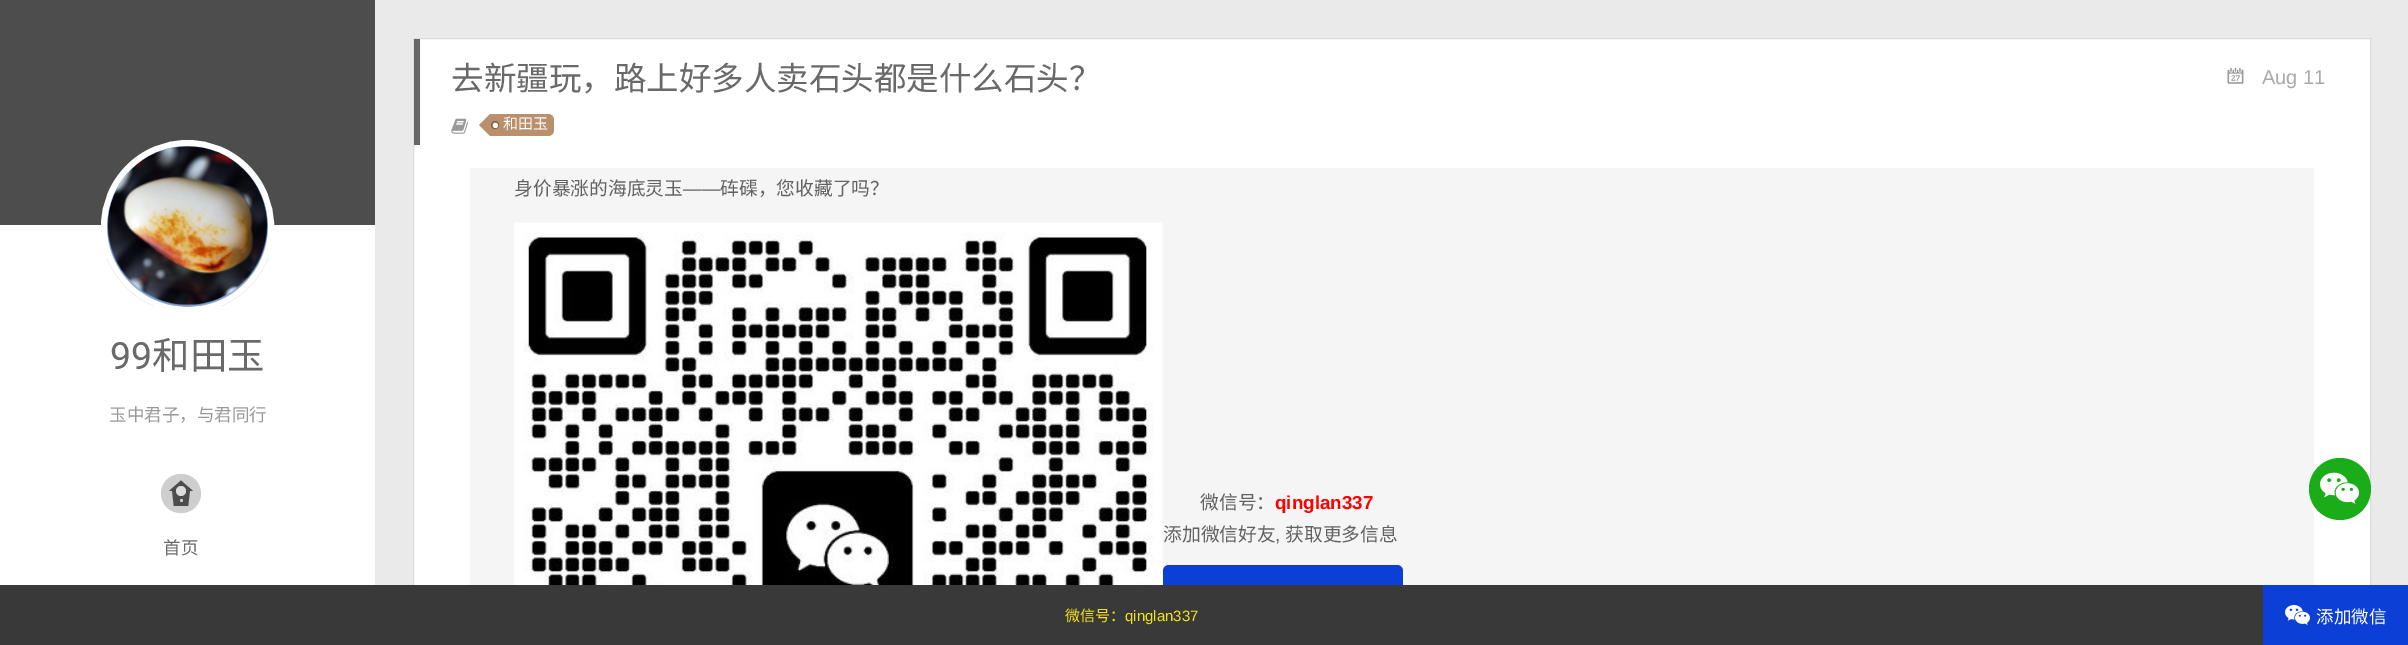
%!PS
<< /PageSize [2408 645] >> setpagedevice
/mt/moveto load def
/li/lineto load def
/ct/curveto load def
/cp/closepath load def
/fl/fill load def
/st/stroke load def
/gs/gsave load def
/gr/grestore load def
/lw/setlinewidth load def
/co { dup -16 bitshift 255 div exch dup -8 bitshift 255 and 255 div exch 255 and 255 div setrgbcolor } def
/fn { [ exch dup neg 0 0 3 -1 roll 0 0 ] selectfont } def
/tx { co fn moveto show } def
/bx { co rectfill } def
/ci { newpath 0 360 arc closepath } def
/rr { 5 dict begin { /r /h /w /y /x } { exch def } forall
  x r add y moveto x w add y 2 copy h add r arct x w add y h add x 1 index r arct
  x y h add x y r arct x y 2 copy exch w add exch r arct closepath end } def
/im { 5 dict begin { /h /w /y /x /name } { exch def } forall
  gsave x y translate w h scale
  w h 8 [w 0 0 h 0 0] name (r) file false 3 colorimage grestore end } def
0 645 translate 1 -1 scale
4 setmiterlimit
0 0 2408 645 16#FFFFFF bx
0 0 375 225 16#4D4D4D bx
16#88ACDB co
187.5 226.5 83.5 ci gs fl gr
16#FFFFFF co
6 lw
st
(media/1.raw) 107 146 161 160 im
16#CECECE co
161 474 40 39 19.5 rr fl
16#4D4D4D co
193 491 mt 169 491 li 181 480.5 li cp fl
gs
169 481 26 25 rectclip
172 490 mt 190 490 li 187.5 512 li 183.5 513.5 178.5 513.5 174.5 512 ct cp fl
gr
16#DDDDDD co
181 491 5 ci fl
16#CCCCCC co
181.5 500.5 1.5 ci fl
375 0 2033 585 16#EAEAEA bx
414 39 1956 546 16#FFFFFF bx
16#DDDDDD co
1 lw
413.5 38.5 1957 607 rectstroke
414 39 6 106 16#666666 bx
(media/2.raw) 451 118 17 16 im
16#BA8F6C co
490 114 mt 548 114 li 551.5 114 554 116.5 554 120 ct 554 130 li 554 133.5 551.5 136 548 136 ct 490 136 li cp fl
490 114 mt 490 136 li 479 125 li cp fl
16#82644C co
495 125 3.5 ci st
16#FFFFFF co
495.5 125.5 2.5 ci fl
470 168 1844 417 16#F5F5F5 bx
(media/3.raw) 514 222 649 363 im
16#0C3FD6 co
1163 565 240 49 6 rr fl
(media/4.raw) 2227 67 17 17 im
16#1AAD19 co
2340 489 31 ci fl
(media/5.raw) 2320 472 40 32 im
0 585 2263 60 16#393939 bx
2263 585 145 60 16#0C3FD6 bx
(media/6.raw) 2285 605 25 20 im
(99) 110 369 /Roboto-Regular 37.5 16#696969 tx
(和田玉) 152 369 /NotoSansCJKSC-Regular 37.5 16#696969 tx
(玉中君子，与君同行) 109 421 /NotoSansCJKSC-Regular 17.5 16#999999 tx
(首页) 163 554 /NotoSansCJKSC-Regular 17.5 16#696969 tx
(去新疆玩，路上好多人卖石头都是什么石头？) 451 90 /NotoSansCJKSC-Regular 32.5 16#696969 tx
(和田玉) 503 129 /NotoSansCJKSC-Regular 15 16#FFFFFF tx
(身价暴涨的海底灵玉) 514 195 /NotoSansCJKSC-Regular 18.75 16#626262 tx
(——) 683 195 /LiberationSans-Regular 18.75 16#626262 tx
(砗磲，您收藏了吗？) 720 195 /NotoSansCJKSC-Regular 18.75 16#626262 tx
(微信号：) 1200 509 /NotoSansCJKSC-Regular 18.75 16#626262 tx
(qinglan337) 1275 509 /LiberationSans-Bold 18.75 16#FF0000 tx
(添加微信好友) 1163 541 /NotoSansCJKSC-Regular 18.75 16#626262 tx
(,) 1275 541 /LiberationSans-Regular 18.75 16#626262 tx
(获取更多信息) 1285 541 /NotoSansCJKSC-Regular 18.75 16#626262 tx
(Aug 11) 2262 84 /LiberationSans-Regular 20 16#AAAAAA tx
(微信号：) 1065 621 /NotoSansCJKSC-Regular 15 16#F4E41C tx
(qinglan337) 1125 621 /LiberationSans-Regular 15 16#F4E41C tx
(添加微信) 2316 623 /NotoSansCJKSC-Regular 17.5 16#FFFFFF tx
showpage
